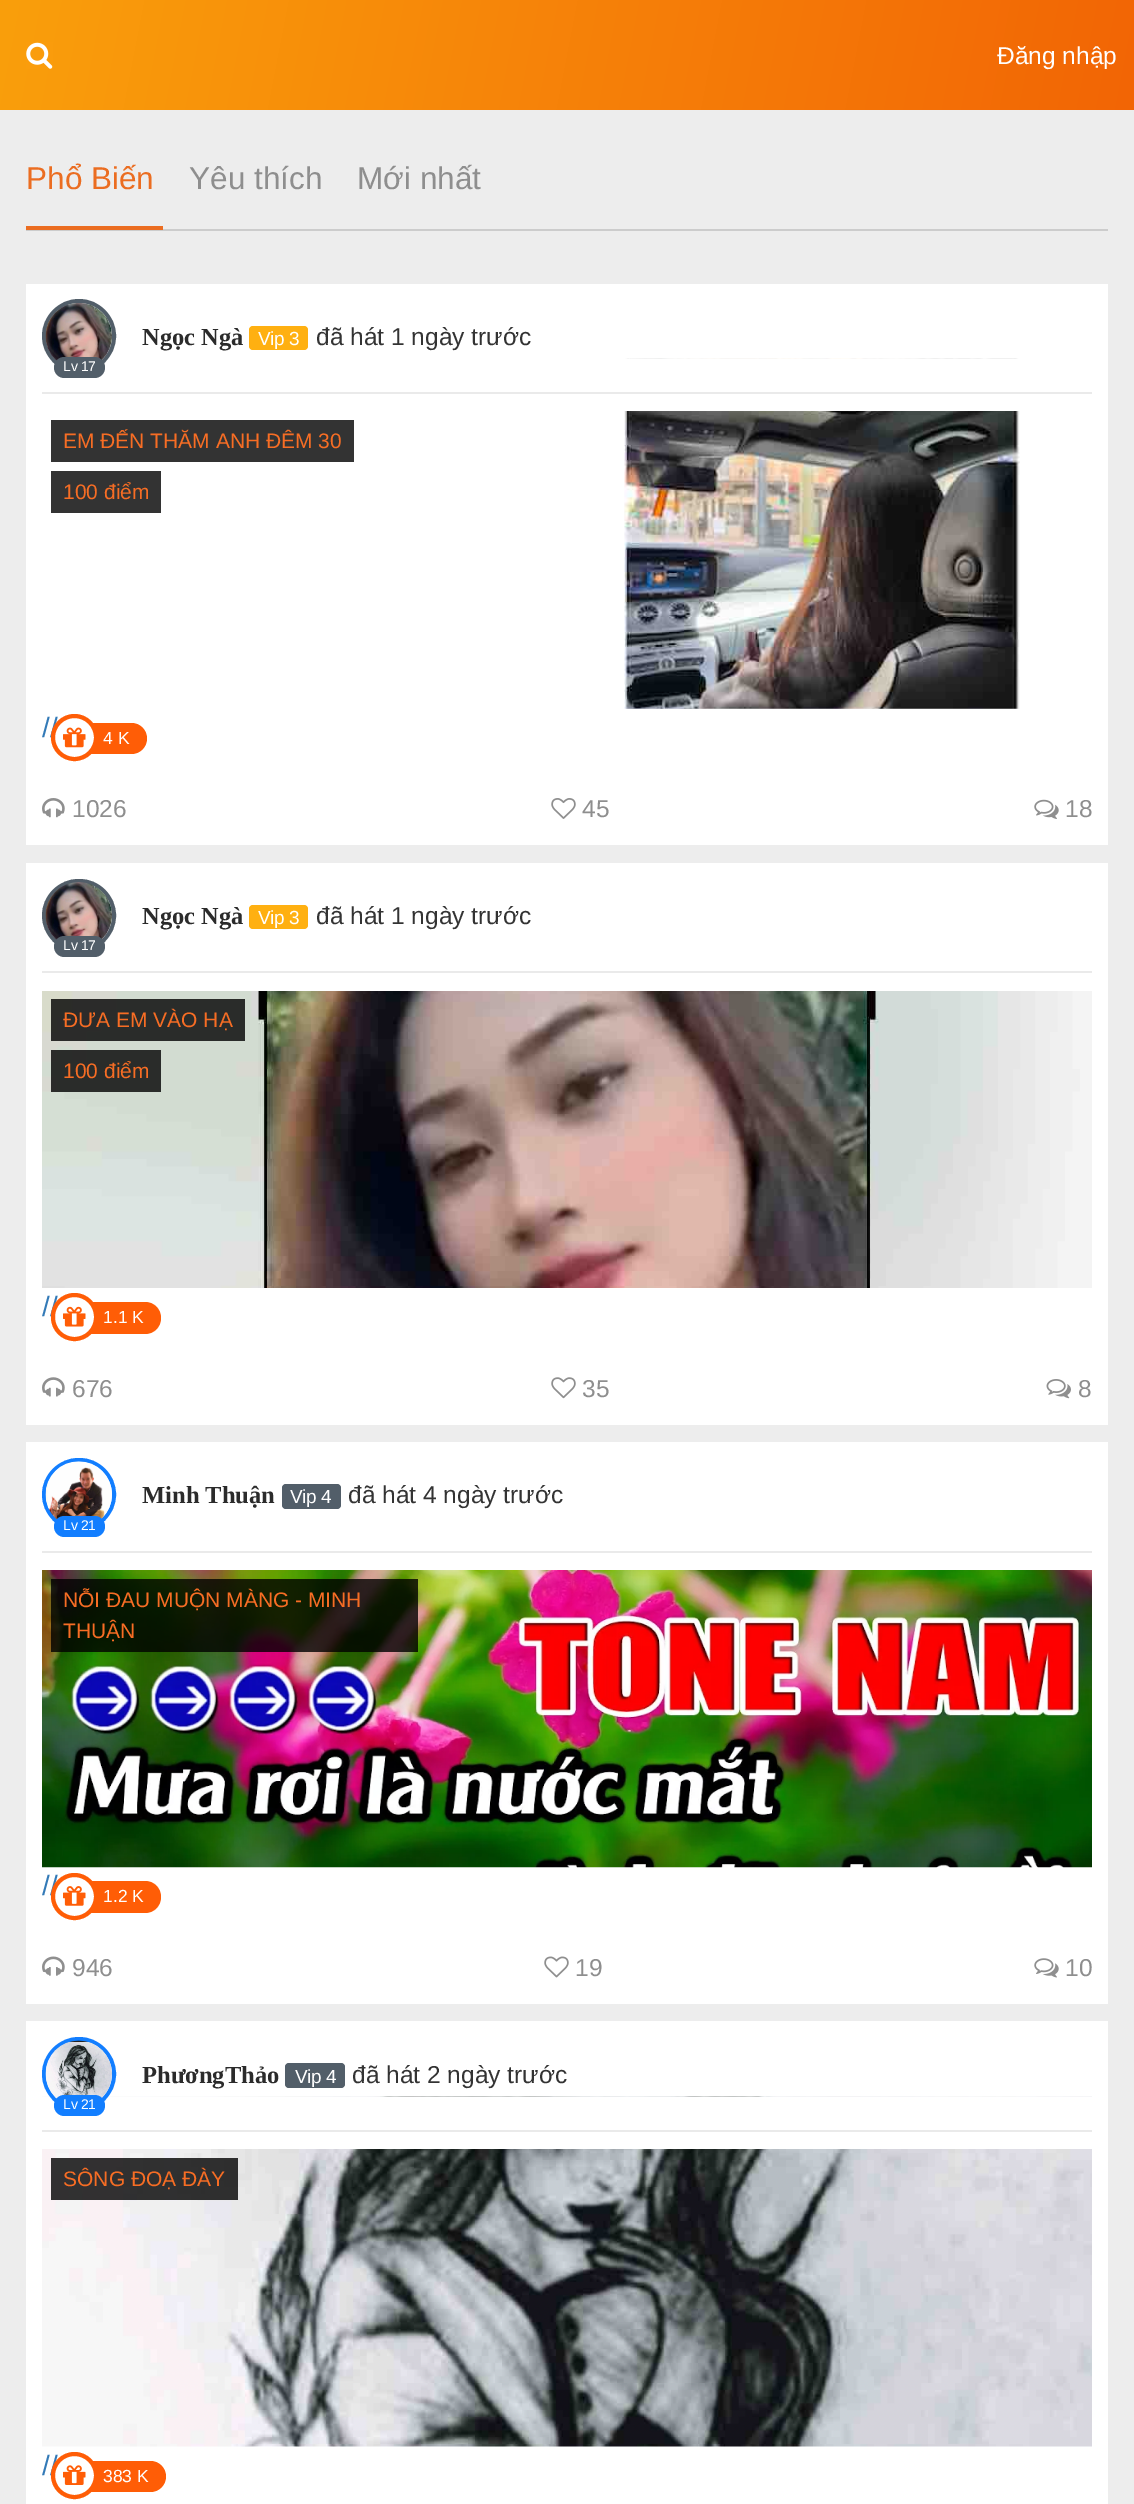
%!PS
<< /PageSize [1134 2504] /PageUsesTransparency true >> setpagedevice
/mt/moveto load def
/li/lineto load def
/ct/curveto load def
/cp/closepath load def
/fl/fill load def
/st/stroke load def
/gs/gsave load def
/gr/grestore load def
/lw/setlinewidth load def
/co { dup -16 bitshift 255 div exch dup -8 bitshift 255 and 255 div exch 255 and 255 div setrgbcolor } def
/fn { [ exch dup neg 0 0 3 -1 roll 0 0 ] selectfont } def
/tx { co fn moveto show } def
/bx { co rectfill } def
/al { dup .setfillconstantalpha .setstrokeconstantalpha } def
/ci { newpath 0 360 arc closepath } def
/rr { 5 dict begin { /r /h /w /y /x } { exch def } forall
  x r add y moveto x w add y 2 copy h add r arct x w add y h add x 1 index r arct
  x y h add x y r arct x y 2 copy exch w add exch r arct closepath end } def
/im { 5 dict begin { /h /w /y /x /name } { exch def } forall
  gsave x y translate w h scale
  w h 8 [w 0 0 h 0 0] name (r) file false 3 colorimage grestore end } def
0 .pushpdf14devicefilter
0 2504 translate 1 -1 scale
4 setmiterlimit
0 0 1134 2504 16#EDEDED bx
gs 0 0 mt 1134 0 li 1134 110 li 0 110 li cp clip newpath
<< /ShadingType 2 /ColorSpace /DeviceRGB /Coords [10 -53 1124 163] /Extend [true true] /Function << /FunctionType 2 /Domain [0 1] /C0 [.98 .624 .047] /C1 [.949 .396 .02] /N 1 >> >> shfill gr
(media/1.raw) 26 42 27 27 im
26 229 1082 2 16#CCCCCC bx
26 226 137 4 16#EB6D21 bx
26 284 1082 561 16#FFFFFF bx
(media/4.raw) 624 358 396 351 im
624 359 396 52 16#FFFFFF bx
42 392 1050 2 16#EAEAEA bx
16#FFB011 co
249 326 59 24 4 rr fl
16#525E69 co
4 lw
79 336 35 ci st
(media/2.raw) 45 303 67 58 im
54 357 51 21 10.5 rr fl
51 420 303 42 16#333333 bx
51 471 110 42 16#333333 bx
16#FF5D06 co
91 723 mt 131.5 723 li 140 723 147 730 147 738.5 ct 147 747 140 754 131.5 754 ct 91 754 li cp fl
(media/5.raw) 42 798 23 20 im
(media/6.raw) 551 798 25 21 im
(media/7.raw) 1034 799 25 20 im
26 863 1082 562 16#FFFFFF bx
42 971 1050 2 16#EAEAEA bx
16#FFB011 co
249 905 59 24 4 rr fl
16#525E69 co
44 881 70 69 34.5 rr st
(media/8.raw) 45 882 67 59 im
54 936 51 21 10.5 rr fl
(media/9.raw) 42 991 1050 297 im
0.8 al
51 999 194 42 16#000000 bx
51 1050 110 42 16#000000 bx
1 al
16#FF5D06 co
91 1302 mt 145 1302 li 154 1302 161 1309 161 1318 ct 161 1327 154 1334 145 1334 ct 91 1334 li cp fl
(media/11.raw) 42 1377 23 20 im
(media/12.raw) 551 1377 25 22 im
(media/13.raw) 1046 1379 25 20 im
26 1442 1082 562 16#FFFFFF bx
42 1551 1050 2 16#EAEAEA bx
16#525E69 co
282 1484 59 25 4 rr fl
16#127EFF co
44 1460 70 69 34.5 rr st
(media/14.raw) 45 1461 67 59 im
54 1516 51 21 10.5 rr fl
(media/15.raw) 42 1570 1050 298 im
0.8 al
51 1579 367 73 16#000000 bx
1 al
16#FF5D06 co
91 1881 mt 145 1881 li 154 1881 161 1888 161 1897 ct 161 1906 154 1913 145 1913 ct 91 1913 li cp fl
(media/17.raw) 42 1956 23 20 im
(media/18.raw) 544 1956 25 22 im
(media/19.raw) 1034 1958 25 20 im
26 2021 1082 483 16#FFFFFF bx
(media/21.raw) 42 2096 1050 351 im
42 2097 1050 52 16#FFFFFF bx
42 2130 1050 2 16#EAEAEA bx
16#525E69 co
285 2063 60 25 4 rr fl
16#127EFF co
79 2074 35 ci st
(media/20.raw) 45 2040 67 59 im
54 2095 51 21 10.5 rr fl
0.8 al
51 2158 187 42 16#000000 bx
1 al
16#FF5D06 co
91 2461 mt 150.5 2461 li 159 2461 166 2468 166 2476.5 ct 166 2485 159 2492 150.5 2492 ct 91 2492 li cp fl
(Đăng nhập) 997 64 /LiberationSans-Regular 24.5 16#FFFFFF tx
(Phổ Biến) 26 189 /LiberationSans-Regular 31.5 16#EB6D21 tx
(Yêu thích) 189 189 /LiberationSans-Regular 31.5 16#8E8E8E tx
(Mới nhất) 357 189 /LiberationSans-Regular 31.5 16#8E8E8E tx
(Ngọc Ngà) 142 345 /LiberationSerif-Bold 24.5 16#2B2B2B tx
/LiberationSans-Regular 19 fn
16#FFFFFF co
258 345 mt -.5 0 (Vip 3) ashow
(đã hát 1 ngày trước) 316 345 /LiberationSans-Regular 24.5 16#333333 tx
/LiberationSans-Regular 14 fn
16#FFFFFF co
63 371 mt -.25 0 (Lv 17) ashow
(EM ĐẾN THĂM ANH ĐÊM 30) 63 448 /LiberationSans-Regular 21 16#F76D24 tx
(100 điểm) 63 499 /LiberationSans-Regular 21 16#F76D24 tx
(//) 42 737 /LiberationSans-Regular 28 16#337AB7 tx
16#FFFFFF co
74.5 737.5 21.5 ci gs fl gr
16#FF5D06 co
st
(media/3.raw) 63 727 23 21 im
(4 K) 103 744 /LiberationSans-Regular 17.5 16#FFFFFF tx
(1026) 72 817 /LiberationSans-Regular 24.5 16#8E8E8E tx
(45) 582 817 /LiberationSans-Regular 24.5 16#8E8E8E tx
(18) 1065 817 /LiberationSans-Regular 24.5 16#8E8E8E tx
(Ngọc Ngà) 142 924 /LiberationSerif-Bold 24.5 16#2B2B2B tx
/LiberationSans-Regular 19 fn
16#FFFFFF co
258 924 mt -.5 0 (Vip 3) ashow
(đã hát 1 ngày trước) 316 924 /LiberationSans-Regular 24.5 16#333333 tx
/LiberationSans-Regular 14 fn
16#FFFFFF co
63 950 mt -.25 0 (Lv 17) ashow
(ĐƯA EM VÀO HẠ) 63 1027 /LiberationSans-Regular 21 16#F76D24 tx
(100 điểm) 63 1078 /LiberationSans-Regular 21 16#F76D24 tx
(//) 42 1316 /LiberationSans-Regular 28 16#337AB7 tx
16#FFFFFF co
53 1295 43 44 21.5 rr gs fl gr
16#FF5D06 co
st
(media/10.raw) 63 1306 23 21 im
(1.1 K) 103 1323 /LiberationSans-Regular 17.5 16#FFFFFF tx
(676) 72 1397 /LiberationSans-Regular 24.5 16#8E8E8E tx
(35) 582 1397 /LiberationSans-Regular 24.5 16#8E8E8E tx
(8) 1078 1397 /LiberationSans-Regular 24.5 16#8E8E8E tx
(Minh Thuận) 142 1503 /LiberationSerif-Bold 24.5 16#2B2B2B tx
/LiberationSans-Regular 19 fn
16#FFFFFF co
290 1503 mt -.5 0 (Vip 4) ashow
(đã hát 4 ngày trước) 348 1503 /LiberationSans-Regular 24.5 16#333333 tx
/LiberationSans-Regular 14 fn
16#FFFFFF co
63 1530 mt -.25 0 (Lv 21) ashow
(NỖI ĐAU MUỘN MÀNG - MINH) 63 1607 /LiberationSans-Regular 21 16#F76D24 tx
(THUẬN) 63 1638 /LiberationSans-Regular 21 16#F76D24 tx
(//) 42 1895 /LiberationSans-Regular 28 16#337AB7 tx
16#FFFFFF co
74.5 1896.5 21.5 ci gs fl gr
16#FF5D06 co
st
(media/16.raw) 63 1886 23 20 im
(1.2 K) 103 1902 /LiberationSans-Regular 17.5 16#FFFFFF tx
(946) 72 1976 /LiberationSans-Regular 24.5 16#8E8E8E tx
(19) 575 1976 /LiberationSans-Regular 24.5 16#8E8E8E tx
(10) 1065 1976 /LiberationSans-Regular 24.5 16#8E8E8E tx
(PhươngThảo) 142 2083 /LiberationSerif-Bold 24.5 16#2B2B2B tx
/LiberationSans-Regular 19 fn
16#FFFFFF co
295 2083 mt -.5 0 (Vip 4) ashow
(đã hát 2 ngày trước) 352 2083 /LiberationSans-Regular 24.5 16#333333 tx
/LiberationSans-Regular 14 fn
16#FFFFFF co
63 2109 mt -.25 0 (Lv 21) ashow
(SÔNG ĐOẠ ĐÀY) 63 2186 /LiberationSans-Regular 21 16#F76D24 tx
(//) 42 2475 /LiberationSans-Regular 28 16#337AB7 tx
16#FFFFFF co
74.5 2475.5 21.5 ci gs fl gr
16#FF5D06 co
st
(media/22.raw) 63 2465 23 20 im
(383 K) 103 2482 /LiberationSans-Regular 17.5 16#FFFFFF tx
.poppdf14devicefilter showpage
